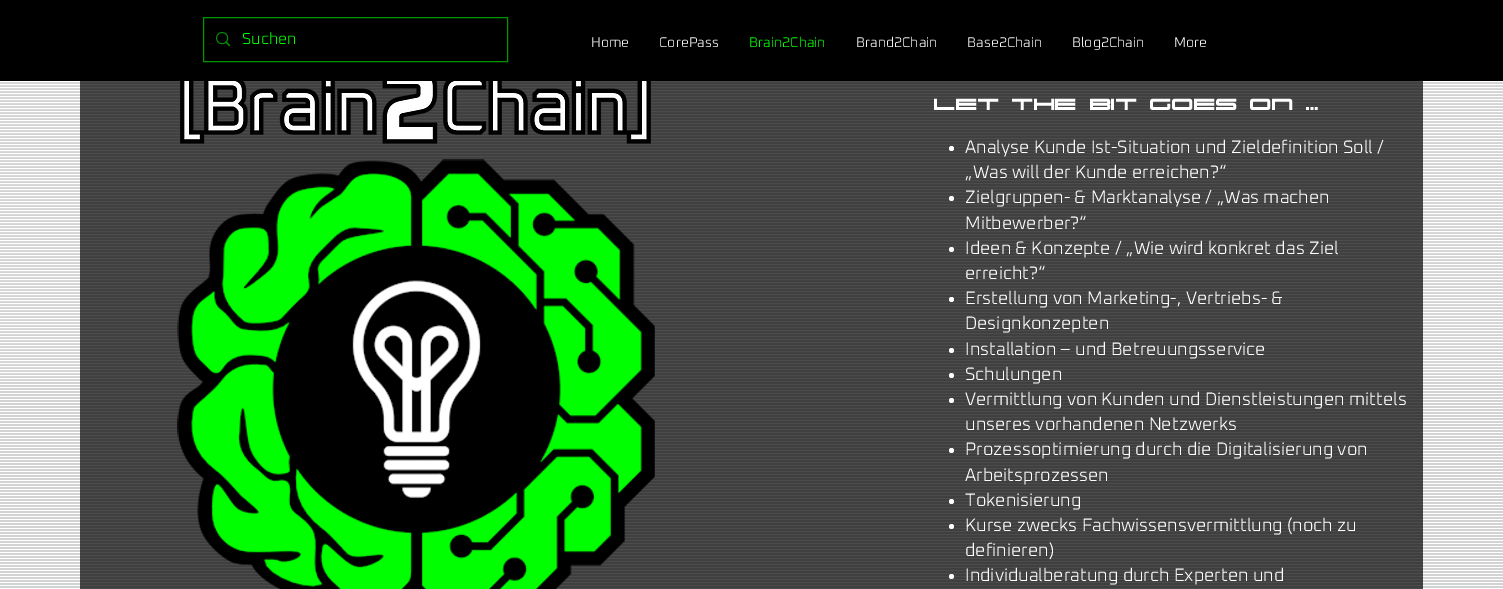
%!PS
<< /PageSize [1503 589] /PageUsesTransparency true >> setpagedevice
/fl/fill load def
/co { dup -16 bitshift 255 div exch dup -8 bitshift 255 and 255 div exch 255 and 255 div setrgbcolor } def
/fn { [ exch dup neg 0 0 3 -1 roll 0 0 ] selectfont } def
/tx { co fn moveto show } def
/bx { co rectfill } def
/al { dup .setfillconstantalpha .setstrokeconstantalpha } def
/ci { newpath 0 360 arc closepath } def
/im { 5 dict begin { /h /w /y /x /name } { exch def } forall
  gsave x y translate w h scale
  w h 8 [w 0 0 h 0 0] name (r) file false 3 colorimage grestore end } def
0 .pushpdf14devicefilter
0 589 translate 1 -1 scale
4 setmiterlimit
0 0 1503 589 16#FFFFFF bx
0 0 1503 81 16#000000 bx
16#009600 co
203.5 17.5 304 44 rectstroke
(media/1.raw) 216 32 14 15 im
(media/4.raw) 0 82 1503 506 im
0.7 al
80 81 672 508 16#000000 bx
1 al
(media/2.raw) 180 81 471 63 im
(media/3.raw) 177 159 478 430 im
0.7 al
752 81 671 508 16#000000 bx
1 al
16#FFFFFF co
951.5 148.5 2.5 ci fl
951.5 198.5 2.5 ci fl
951.5 249.5 2.5 ci fl
951.5 299.5 2.5 ci fl
951.5 350.5 2.5 ci fl
951.5 375.5 2.5 ci fl
951.5 400.5 2.5 ci fl
951.5 450.5 2.5 ci fl
951.5 501.5 2.5 ci fl
951.5 526.5 2.5 ci fl
951.5 576.5 2.5 ci fl
(Suchen) 242 44 /Oxanium-Light 16 16#00FA00 tx
(Home) 591 47 /Oxanium-Light 14 16#F2F2F2 tx
(CorePass) 659 47 /Oxanium-Light 14 16#F2F2F2 tx
(Brain2Chain) 749 47 /Oxanium-Light 14 16#00FA00 tx
(Brand2Chain) 856 47 /Oxanium-Light 14 16#F2F2F2 tx
(Base2Chain) 967 47 /Oxanium-Light 14 16#F2F2F2 tx
(Blog2Chain) 1072 47 /Oxanium-Light 14 16#F2F2F2 tx
(More) 1174 47 /Oxanium-Light 14 16#F2F2F2 tx
(let the bit goes on …) 933 110 /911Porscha-Bold 22 16#FFFFFF tx
(Analyse Kunde Ist-Situation und Zieldefinition Soll /) 965 153 /Oxanium-Light 18 16#FFFFFF tx
(„Was will der Kunde erreichen?“) 965 178 /Oxanium-Light 18 16#FFFFFF tx
(Zielgruppen- & Marktanalyse / „Was machen) 965 203 /Oxanium-Light 18 16#FFFFFF tx
(Mitbewerber?“) 965 229 /Oxanium-Light 18 16#FFFFFF tx
(Ideen & Konzepte / „Wie wird konkret das Ziel) 965 254 /Oxanium-Light 18 16#FFFFFF tx
(erreicht?“) 965 279 /Oxanium-Light 18 16#FFFFFF tx
(Erstellung von Marketing-, Vertriebs- &) 965 304 /Oxanium-Light 18 16#FFFFFF tx
(Designkonzepten) 965 329 /Oxanium-Light 18 16#FFFFFF tx
(Installation – und Betreuungsservice) 965 355 /Oxanium-Light 18 16#FFFFFF tx
(Schulungen) 965 380 /Oxanium-Light 18 16#FFFFFF tx
(Vermittlung von Kunden und Dienstleistungen mittels) 965 405 /Oxanium-Light 18 16#FFFFFF tx
(unseres vorhandenen Netzwerks) 965 430 /Oxanium-Light 18 16#FFFFFF tx
(Prozessoptimierung durch die Digitalisierung von) 965 455 /Oxanium-Light 18 16#FFFFFF tx
(Arbeitsprozessen) 965 481 /Oxanium-Light 18 16#FFFFFF tx
(Tokenisierung) 965 506 /Oxanium-Light 18 16#FFFFFF tx
(Kurse zwecks Fachwissensvermittlung \(noch zu) 965 531 /Oxanium-Light 18 16#FFFFFF tx
(definieren\)) 965 556 /Oxanium-Light 18 16#FFFFFF tx
(Individualberatung durch Experten und) 965 581 /Oxanium-Light 18 16#FFFFFF tx
.poppdf14devicefilter showpage
